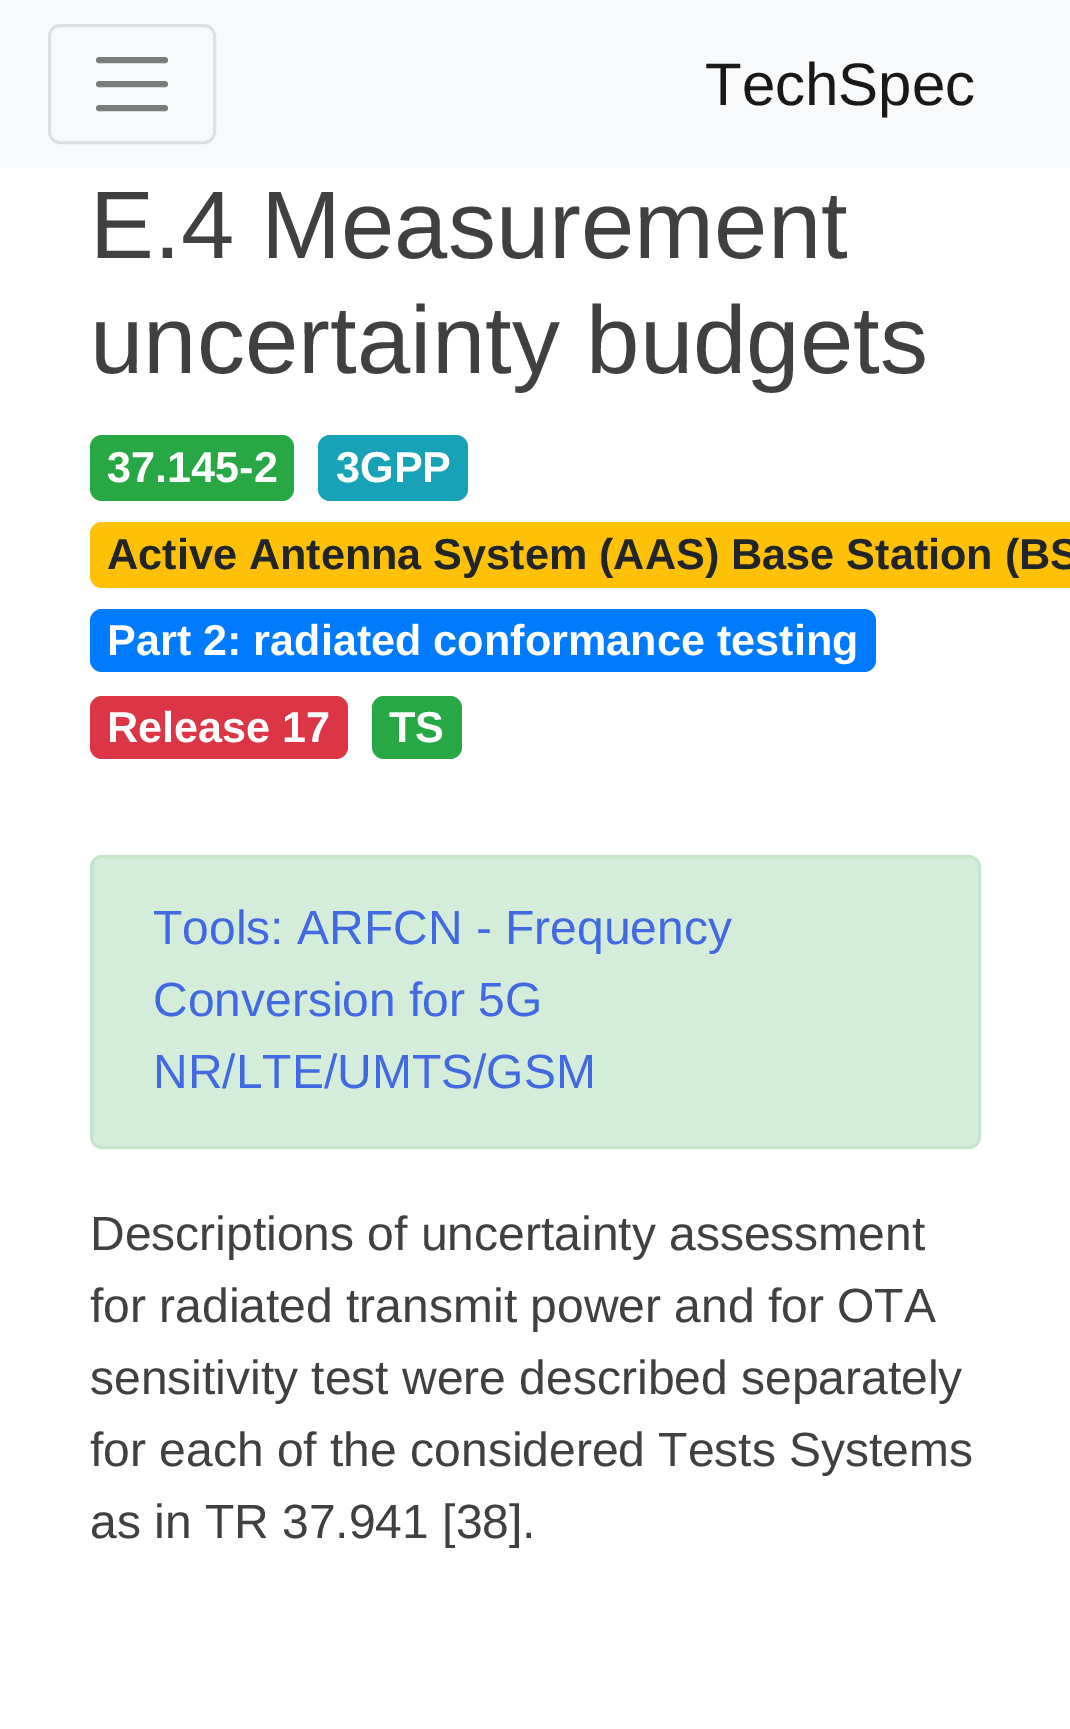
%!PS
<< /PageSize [1070 1729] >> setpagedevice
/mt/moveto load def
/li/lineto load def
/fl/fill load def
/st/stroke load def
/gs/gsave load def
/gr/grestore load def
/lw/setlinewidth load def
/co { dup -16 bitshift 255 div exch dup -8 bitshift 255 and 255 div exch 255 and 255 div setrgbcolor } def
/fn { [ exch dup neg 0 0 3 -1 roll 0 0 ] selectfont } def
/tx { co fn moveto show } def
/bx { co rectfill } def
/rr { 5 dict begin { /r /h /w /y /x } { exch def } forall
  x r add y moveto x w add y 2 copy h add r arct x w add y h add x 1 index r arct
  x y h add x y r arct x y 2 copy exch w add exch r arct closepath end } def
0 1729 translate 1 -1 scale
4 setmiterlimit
0 0 1070 1729 16#FFFFFF bx
0 0 1070 168 16#F8F9FA bx
16#DFE0E1 co
3 lw
49.5 25.5 165 117 10.5 rr st
16#7C7D7D co
6 lw
1 setlinecap
99 60 mt 165 60 li 99 84 mt 165 84 li 99 108 mt 165 108 li st
16#28A745 co
90 435 204 66 12 rr fl
16#17A2B8 co
318 435 150 66 12 rr fl
16#FFC107 co
90 522 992 66 12 rr fl
16#007BFF co
90 609 786 63 12 rr fl
16#DC3545 co
90 696 258 63 12 rr fl
16#28A745 co
372 696 90 63 12 rr fl
16#D4EDDA co
91.5 856.5 888 291 10.5 rr gs fl gr
16#C3E6CB co
3 lw
0 setlinecap
st
(TechSpec) 705 105 /LiberationSans-Regular 60 16#191919 tx
(E.4 Measurement) 90 258 /LiberationSans-Regular 96 16#404040 tx
(uncertainty budgets) 90 373 /LiberationSans-Regular 96 16#404040 tx
(37.145-2) 107 482 /LiberationSans-Bold 43.2 16#FFFFFF tx
(3GPP) 336 482 /LiberationSans-Bold 43.2 16#FFFFFF tx
(Active Antenna System \(AAS\) Base Station \(BS) 107 569 /LiberationSans-Bold 43.2 16#212529 tx
(Part 2: radiated conformance testing) 107 655 /LiberationSans-Bold 43.2 16#FFFFFF tx
(Release 17) 107 742 /LiberationSans-Bold 43.2 16#FFFFFF tx
(TS) 389 742 /LiberationSans-Bold 43.2 16#FFFFFF tx
(Tools: ARFCN - Frequency) 153 944 /LiberationSans-Regular 48 16#4169E1 tx
(Conversion for 5G) 153 1016 /LiberationSans-Regular 48 16#4169E1 tx
(NR/LTE/UMTS/GSM) 153 1088 /LiberationSans-Regular 48 16#4169E1 tx
(Descriptions of uncertainty assessment) 90 1250 /LiberationSans-Regular 48 16#404040 tx
(for radiated transmit power and for OTA) 90 1322 /LiberationSans-Regular 48 16#404040 tx
(sensitivity test were described separately) 90 1394 /LiberationSans-Regular 48 16#404040 tx
(for each of the considered Tests Systems) 90 1466 /LiberationSans-Regular 48 16#404040 tx
(as in TR 37.941 [38].) 90 1538 /LiberationSans-Regular 48 16#404040 tx
showpage
